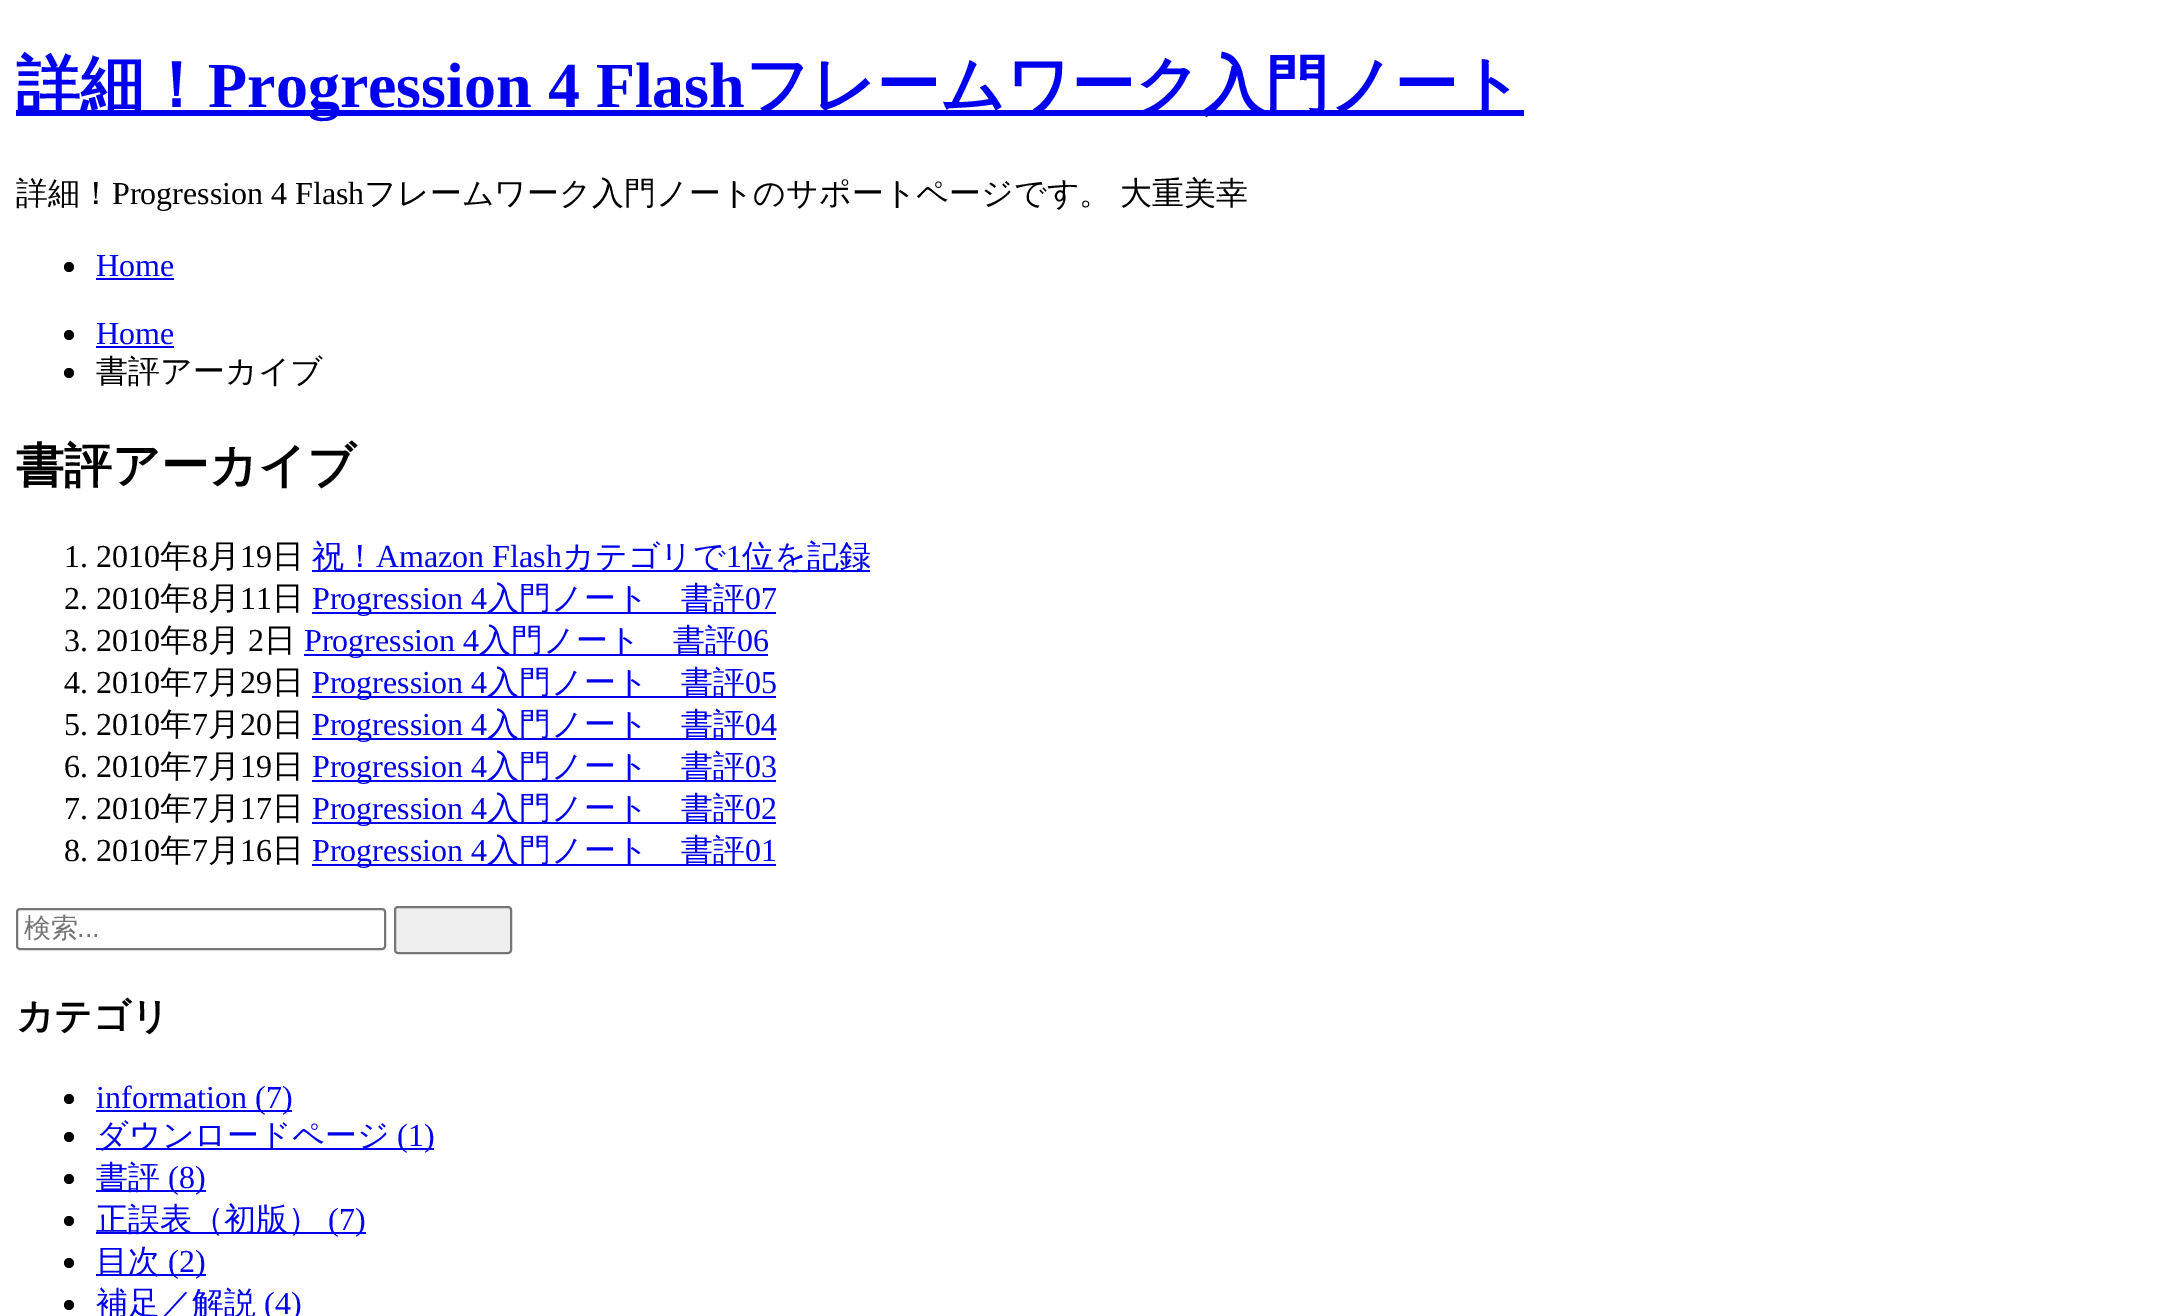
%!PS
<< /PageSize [2162 1316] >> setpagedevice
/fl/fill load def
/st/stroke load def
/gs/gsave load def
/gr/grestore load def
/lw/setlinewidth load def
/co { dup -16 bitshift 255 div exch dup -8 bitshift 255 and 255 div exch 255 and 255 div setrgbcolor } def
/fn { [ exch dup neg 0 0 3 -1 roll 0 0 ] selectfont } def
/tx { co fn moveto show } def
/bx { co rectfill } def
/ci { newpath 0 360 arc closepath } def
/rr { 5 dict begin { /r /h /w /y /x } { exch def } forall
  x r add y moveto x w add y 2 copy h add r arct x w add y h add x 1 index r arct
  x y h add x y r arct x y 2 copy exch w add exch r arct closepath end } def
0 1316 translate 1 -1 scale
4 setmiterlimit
0 0 2162 1316 16#FFFFFF bx
16 110 1508 6 16#0000EE bx
16#000000 co
69 267 5 ci fl
96 278 78 2 16#0000EE bx
16#000000 co
69 335 5 ci fl
96 346 78 2 16#0000EE bx
16#000000 co
69 373 5 ci fl
312 570 558 2 16#0000EE bx
312 612 464 2 16#0000EE bx
304 654 464 2 16#0000EE bx
312 696 464 2 16#0000EE bx
312 738 464 2 16#0000EE bx
312 780 464 2 16#0000EE bx
312 822 464 2 16#0000EE bx
312 864 464 2 16#0000EE bx
16#767676 co
2 lw
17 909 368 40 3 rr st
16#EFEFEF co
395 907 116 46 3 rr gs fl gr
16#767676 co
st
16#000000 co
69 1099 5 ci fl
96 1110 196 2 16#0000EE bx
16#000000 co
69 1137 5 ci fl
96 1148 338 2 16#0000EE bx
16#000000 co
69 1179 5 ci fl
96 1190 110 2 16#0000EE bx
16#000000 co
69 1221 5 ci fl
96 1232 270 2 16#0000EE bx
16#000000 co
69 1263 5 ci fl
96 1274 110 2 16#0000EE bx
16#000000 co
69 1305 5 ci fl
(詳細！) 16 107 /WenQuanYiZenHei-Bold 64 16#0000EE tx
(Progression 4 Flash) 208 107 /LiberationSerif-Bold 64 16#0000EE tx
(フレームワーク入門ノート) 745 107 /WenQuanYiZenHei-Bold 64 16#0000EE tx
(詳細！) 16 204 /WenQuanYiZenHei-Medium 32 16#000000 tx
(Progression 4 Flash) 112 204 /LiberationSerif-Regular 32 16#000000 tx
(フレームワーク入門ノートのサポートページです。) 364 204 /WenQuanYiZenHei-Medium 32 16#000000 tx
(大重美幸) 1120 204 /WenQuanYiZenHei-Medium 32 16#000000 tx
(Home) 96 276 /LiberationSerif-Regular 32 16#0000EE tx
(Home) 96 344 /LiberationSerif-Regular 32 16#0000EE tx
(書評アーカイブ) 96 382 /WenQuanYiZenHei-Medium 32 16#000000 tx
(書評アーカイブ) 16 482 /WenQuanYiZenHei-Bold 48 16#000000 tx
(1. 2010) 64 567 /LiberationSerif-Regular 32 16#000000 tx
(年) 160 567 /WenQuanYiZenHei-Medium 32 16#000000 tx
(8) 192 567 /LiberationSerif-Regular 32 16#000000 tx
(月) 208 567 /WenQuanYiZenHei-Medium 32 16#000000 tx
(19) 240 567 /LiberationSerif-Regular 32 16#000000 tx
(日) 272 567 /WenQuanYiZenHei-Medium 32 16#000000 tx
(祝！) 312 567 /WenQuanYiZenHei-Medium 32 16#0000EE tx
(Amazon Flash) 376 567 /LiberationSerif-Regular 32 16#0000EE tx
(カテゴリで) 562 567 /WenQuanYiZenHei-Medium 32 16#0000EE tx
(1) 726 567 /LiberationSerif-Regular 32 16#0000EE tx
(位を記録) 742 567 /WenQuanYiZenHei-Medium 32 16#0000EE tx
(2. 2010) 64 609 /LiberationSerif-Regular 32 16#000000 tx
(年) 160 609 /WenQuanYiZenHei-Medium 32 16#000000 tx
(8) 192 609 /LiberationSerif-Regular 32 16#000000 tx
(月) 208 609 /WenQuanYiZenHei-Medium 32 16#000000 tx
(11) 240 609 /LiberationSerif-Regular 32 16#000000 tx
(日) 272 609 /WenQuanYiZenHei-Medium 32 16#000000 tx
(Progression 4) 312 609 /LiberationSerif-Regular 32 16#0000EE tx
(入門ノート　書評) 487 609 /WenQuanYiZenHei-Medium 32 16#0000EE tx
(07) 745 609 /LiberationSerif-Regular 32 16#0000EE tx
(3. 2010) 64 651 /LiberationSerif-Regular 32 16#000000 tx
(年) 160 651 /WenQuanYiZenHei-Medium 32 16#000000 tx
(8) 192 651 /LiberationSerif-Regular 32 16#000000 tx
(月) 208 651 /WenQuanYiZenHei-Medium 32 16#000000 tx
(2) 248 651 /LiberationSerif-Regular 32 16#000000 tx
(日) 264 651 /WenQuanYiZenHei-Medium 32 16#000000 tx
(Progression 4) 304 651 /LiberationSerif-Regular 32 16#0000EE tx
(入門ノート　書評) 479 651 /WenQuanYiZenHei-Medium 32 16#0000EE tx
(06) 737 651 /LiberationSerif-Regular 32 16#0000EE tx
(4. 2010) 64 693 /LiberationSerif-Regular 32 16#000000 tx
(年) 160 693 /WenQuanYiZenHei-Medium 32 16#000000 tx
(7) 192 693 /LiberationSerif-Regular 32 16#000000 tx
(月) 208 693 /WenQuanYiZenHei-Medium 32 16#000000 tx
(29) 240 693 /LiberationSerif-Regular 32 16#000000 tx
(日) 272 693 /WenQuanYiZenHei-Medium 32 16#000000 tx
(Progression 4) 312 693 /LiberationSerif-Regular 32 16#0000EE tx
(入門ノート　書評) 487 693 /WenQuanYiZenHei-Medium 32 16#0000EE tx
(05) 745 693 /LiberationSerif-Regular 32 16#0000EE tx
(5. 2010) 64 735 /LiberationSerif-Regular 32 16#000000 tx
(年) 160 735 /WenQuanYiZenHei-Medium 32 16#000000 tx
(7) 192 735 /LiberationSerif-Regular 32 16#000000 tx
(月) 208 735 /WenQuanYiZenHei-Medium 32 16#000000 tx
(20) 240 735 /LiberationSerif-Regular 32 16#000000 tx
(日) 272 735 /WenQuanYiZenHei-Medium 32 16#000000 tx
(Progression 4) 312 735 /LiberationSerif-Regular 32 16#0000EE tx
(入門ノート　書評) 487 735 /WenQuanYiZenHei-Medium 32 16#0000EE tx
(04) 745 735 /LiberationSerif-Regular 32 16#0000EE tx
(6. 2010) 64 777 /LiberationSerif-Regular 32 16#000000 tx
(年) 160 777 /WenQuanYiZenHei-Medium 32 16#000000 tx
(7) 192 777 /LiberationSerif-Regular 32 16#000000 tx
(月) 208 777 /WenQuanYiZenHei-Medium 32 16#000000 tx
(19) 240 777 /LiberationSerif-Regular 32 16#000000 tx
(日) 272 777 /WenQuanYiZenHei-Medium 32 16#000000 tx
(Progression 4) 312 777 /LiberationSerif-Regular 32 16#0000EE tx
(入門ノート　書評) 487 777 /WenQuanYiZenHei-Medium 32 16#0000EE tx
(03) 745 777 /LiberationSerif-Regular 32 16#0000EE tx
(7. 2010) 64 819 /LiberationSerif-Regular 32 16#000000 tx
(年) 160 819 /WenQuanYiZenHei-Medium 32 16#000000 tx
(7) 192 819 /LiberationSerif-Regular 32 16#000000 tx
(月) 208 819 /WenQuanYiZenHei-Medium 32 16#000000 tx
(17) 240 819 /LiberationSerif-Regular 32 16#000000 tx
(日) 272 819 /WenQuanYiZenHei-Medium 32 16#000000 tx
(Progression 4) 312 819 /LiberationSerif-Regular 32 16#0000EE tx
(入門ノート　書評) 487 819 /WenQuanYiZenHei-Medium 32 16#0000EE tx
(02) 745 819 /LiberationSerif-Regular 32 16#0000EE tx
(8. 2010) 64 861 /LiberationSerif-Regular 32 16#000000 tx
(年) 160 861 /WenQuanYiZenHei-Medium 32 16#000000 tx
(7) 192 861 /LiberationSerif-Regular 32 16#000000 tx
(月) 208 861 /WenQuanYiZenHei-Medium 32 16#000000 tx
(16) 240 861 /LiberationSerif-Regular 32 16#000000 tx
(日) 272 861 /WenQuanYiZenHei-Medium 32 16#000000 tx
(Progression 4) 312 861 /LiberationSerif-Regular 32 16#0000EE tx
(入門ノート　書評) 487 861 /WenQuanYiZenHei-Medium 32 16#0000EE tx
(01) 745 861 /LiberationSerif-Regular 32 16#0000EE tx
(検索) 24 937 /WenQuanYiZenHei-Medium 27 16#757575 tx
(...) 77 937 /LiberationSans-Regular 27 16#757575 tx
(カテゴリ) 16 1029 /WenQuanYiZenHei-Bold 37.5 16#000000 tx
(information \(7\)) 96 1108 /LiberationSerif-Regular 32 16#0000EE tx
(ダウンロードページ) 96 1146 /WenQuanYiZenHei-Medium 32 16#0000EE tx
(\(1\)) 397 1146 /LiberationSerif-Regular 32 16#0000EE tx
(書評) 96 1188 /WenQuanYiZenHei-Medium 32 16#0000EE tx
(\(8\)) 168 1188 /LiberationSerif-Regular 32 16#0000EE tx
(正誤表（初版）) 96 1230 /WenQuanYiZenHei-Medium 32 16#0000EE tx
(\(7\)) 328 1230 /LiberationSerif-Regular 32 16#0000EE tx
(目次) 96 1272 /WenQuanYiZenHei-Medium 32 16#0000EE tx
(\(2\)) 168 1272 /LiberationSerif-Regular 32 16#0000EE tx
(補足／解説) 96 1314 /WenQuanYiZenHei-Medium 32 16#0000EE tx
(\(4\)) 264 1314 /LiberationSerif-Regular 32 16#0000EE tx
showpage
